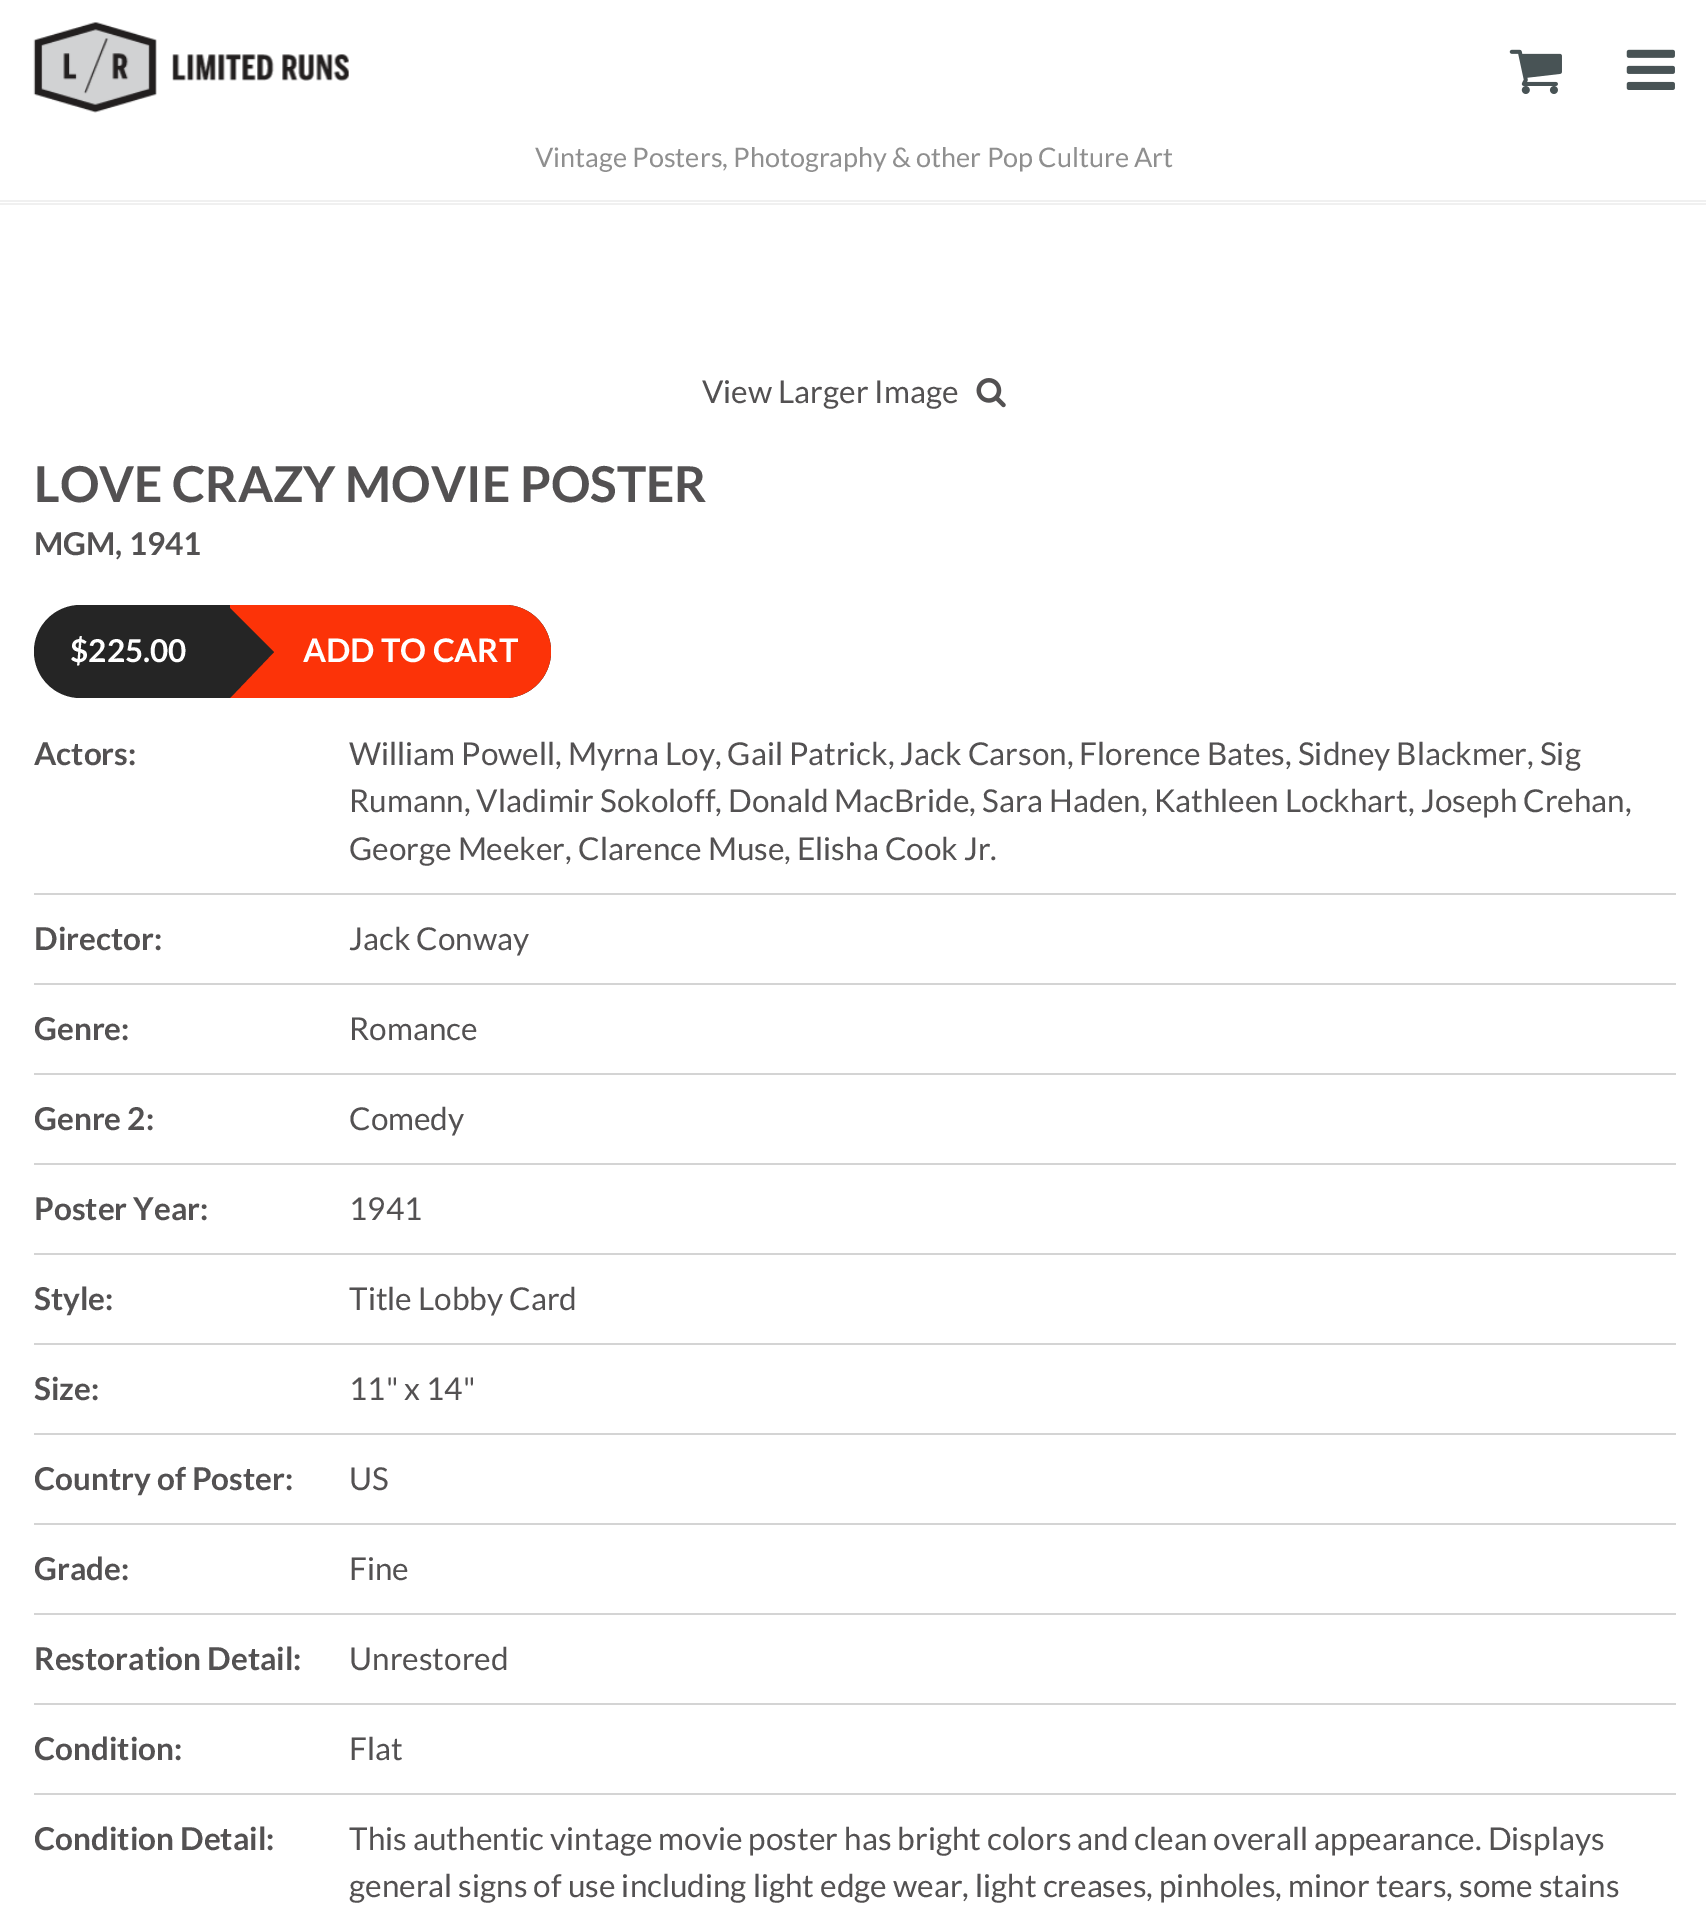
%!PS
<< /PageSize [1706 1930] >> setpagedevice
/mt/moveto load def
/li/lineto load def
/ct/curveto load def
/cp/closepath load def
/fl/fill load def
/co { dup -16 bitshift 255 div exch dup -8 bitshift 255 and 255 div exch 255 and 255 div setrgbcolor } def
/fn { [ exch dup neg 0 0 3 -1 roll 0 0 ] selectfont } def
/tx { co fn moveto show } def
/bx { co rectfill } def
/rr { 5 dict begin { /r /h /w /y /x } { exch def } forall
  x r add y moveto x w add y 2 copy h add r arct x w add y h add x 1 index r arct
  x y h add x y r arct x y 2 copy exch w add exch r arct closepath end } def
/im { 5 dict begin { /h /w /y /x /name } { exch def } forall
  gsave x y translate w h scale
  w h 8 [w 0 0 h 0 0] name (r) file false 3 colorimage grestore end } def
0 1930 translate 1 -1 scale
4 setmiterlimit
0 0 1706 1930 16#FFFFFF bx
(media/1.raw) 33 22 316 91 im
(media/2.raw) 1509 49 53 45 im
(media/3.raw) 1626 49 49 41 im
0 200 1706 2 16#F0F0F0 bx
0 203 1706 2 16#F0F0F0 bx
(media/4.raw) 976 378 30 30 im
16#252525 co
34 605 517 93 46.5 rr fl
16#FC3308 co
230 605 mt 504.5 605 li 530 605 551 626 551 651.5 ct 551 677 530 698 504.5 698 ct 230 698 li cp fl
16#252525 co
230 698 mt 230 608 li 274 652 li cp fl
34 893 1642 2 16#D4D4D4 bx
34 983 1642 2 16#D4D4D4 bx
34 1073 1642 2 16#D4D4D4 bx
34 1163 1642 2 16#D4D4D4 bx
34 1253 1642 2 16#D4D4D4 bx
34 1343 1642 2 16#D4D4D4 bx
34 1433 1642 2 16#D4D4D4 bx
34 1523 1642 2 16#D4D4D4 bx
34 1613 1642 2 16#D4D4D4 bx
34 1703 1642 2 16#D4D4D4 bx
34 1793 1642 2 16#D4D4D4 bx
(Vintage Posters, Photography & other Pop Culture Art) 535 167 /Lato-Regular 27 16#8F8F8F tx
(View Larger Image) 702 403 /Lato-Regular 31.5 16#535152 tx
(LOVE CRAZY MOVIE POSTER) 34 502 /Lato-Bold 49.5 16#535152 tx
(MGM, 1941) 34 555 /Lato-Bold 31.5 16#535152 tx
($225.00) 70 662 /Lato-Bold 31.5 16#FFFFFF tx
(ADD TO CART) 303 662 /Lato-Bold 32.5 16#FFFFFF tx
(Actors:) 34 765 /Lato-Bold 31.5 16#535152 tx
(William Powell, Myrna Loy, Gail Patrick, Jack Carson, Florence Bates, Sidney Blackmer, Sig) 349 765 /Lato-Regular 31.5 16#535152 tx
(Rumann, Vladimir Sokoloff, Donald MacBride, Sara Haden, Kathleen Lockhart, Joseph Crehan,) 349 812 /Lato-Regular 31.5 16#535152 tx
(George Meeker, Clarence Muse, Elisha Cook Jr.) 349 860 /Lato-Regular 31.5 16#535152 tx
(Director:) 34 950 /Lato-Bold 31.5 16#535152 tx
(Jack Conway) 349 950 /Lato-Regular 31.5 16#535152 tx
(Genre:) 34 1040 /Lato-Bold 31.5 16#535152 tx
(Romance) 349 1040 /Lato-Regular 31.5 16#535152 tx
(Genre 2:) 34 1130 /Lato-Bold 31.5 16#535152 tx
(Comedy) 349 1130 /Lato-Regular 31.5 16#535152 tx
(Poster Year:) 34 1220 /Lato-Bold 31.5 16#535152 tx
(1941) 349 1220 /Lato-Regular 31.5 16#535152 tx
(Style:) 34 1310 /Lato-Bold 31.5 16#535152 tx
(Title Lobby Card) 349 1310 /Lato-Regular 31.5 16#535152 tx
(Size:) 34 1400 /Lato-Bold 31.5 16#535152 tx
(11" x 14") 349 1400 /Lato-Regular 31.5 16#535152 tx
(Country of Poster:) 34 1490 /Lato-Bold 31.5 16#535152 tx
(US) 349 1490 /Lato-Regular 31.5 16#535152 tx
(Grade:) 34 1580 /Lato-Bold 31.5 16#535152 tx
(Fine) 349 1580 /Lato-Regular 31.5 16#535152 tx
(Restoration Detail:) 34 1670 /Lato-Bold 31.5 16#535152 tx
(Unrestored) 349 1670 /Lato-Regular 31.5 16#535152 tx
(Condition:) 34 1760 /Lato-Bold 31.5 16#535152 tx
(Flat) 349 1760 /Lato-Regular 31.5 16#535152 tx
(Condition Detail:) 34 1850 /Lato-Bold 31.5 16#535152 tx
(This authentic vintage movie poster has bright colors and clean overall appearance. Displays) 349 1850 /Lato-Regular 31.5 16#535152 tx
(general signs of use including light edge wear, light creases, pinholes, minor tears, some stains) 349 1897 /Lato-Regular 31.5 16#535152 tx
showpage
